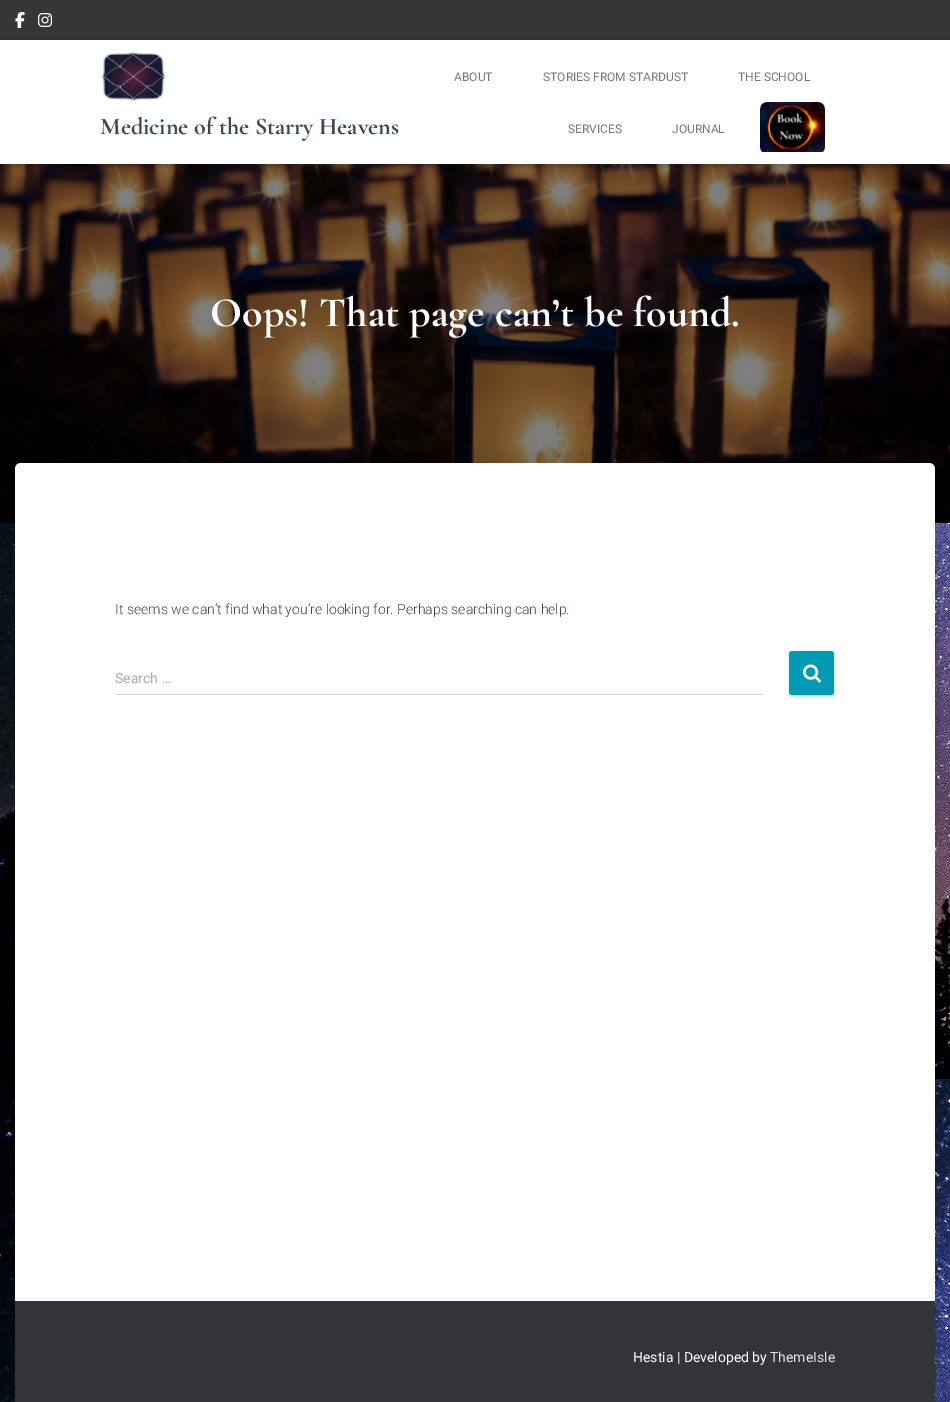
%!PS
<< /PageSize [950 1402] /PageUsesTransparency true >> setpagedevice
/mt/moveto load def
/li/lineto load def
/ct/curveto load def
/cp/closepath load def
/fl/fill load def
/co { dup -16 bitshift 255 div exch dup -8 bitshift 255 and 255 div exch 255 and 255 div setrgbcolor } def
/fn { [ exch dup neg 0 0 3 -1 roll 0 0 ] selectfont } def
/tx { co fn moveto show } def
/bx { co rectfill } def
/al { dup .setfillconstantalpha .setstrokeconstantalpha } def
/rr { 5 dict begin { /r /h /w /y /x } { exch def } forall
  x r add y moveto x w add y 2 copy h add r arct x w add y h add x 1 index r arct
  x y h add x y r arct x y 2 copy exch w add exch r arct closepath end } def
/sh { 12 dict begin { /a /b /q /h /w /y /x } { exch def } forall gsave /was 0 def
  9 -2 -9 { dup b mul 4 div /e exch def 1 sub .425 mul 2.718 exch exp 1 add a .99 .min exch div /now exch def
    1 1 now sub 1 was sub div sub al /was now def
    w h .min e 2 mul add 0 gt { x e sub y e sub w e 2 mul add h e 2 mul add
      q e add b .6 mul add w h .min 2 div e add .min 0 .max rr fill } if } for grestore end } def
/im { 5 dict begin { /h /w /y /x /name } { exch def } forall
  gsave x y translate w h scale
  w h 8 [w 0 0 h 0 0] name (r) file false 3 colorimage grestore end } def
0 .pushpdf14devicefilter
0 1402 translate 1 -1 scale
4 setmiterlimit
0 0 950 1402 16#FFFFFF bx
(media/1.raw) 0 522 950 880 im
0 0 950 40 16#363537 bx
(media/2.raw) 15 12 10 16 im
(media/3.raw) 38 13 14 14 im
(media/6.raw) 0 164 950 359 im
0.5 al
0 164 950 359 16#000000 bx
1 al
2 46 946 120 0 2.5 .1 sh
0 41 950 124 0 5 .12 sh
6 47 938 112 0 5 .42 sh
0 40 950 124 16#FFFFFF bx
(media/4.raw) 100 52 67 50 im
(media/5.raw) 760 102 65 50 im
16#000000 co
20 476 910 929 1 5 .2 sh
10 464 930 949 11 15 .12 sh
13 477 924 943 8 12 .14 sh
16#FFFFFF co
21 463 mt 929 463 li 932.5 463 935 465.5 935 469 ct 935 1402 li 15 1402 li 15 469 li 15 465.5 17.5 463 21 463 ct cp fl
115 694 648 1 16#D2D2D2 bx
16#009AB2 co
789 652 45 44 3 2.5 .12 sh
791 656 41 40 1 .5 .2 sh
789 653 45 44 3 1 .14 sh
789 651 45 44 3 rr fl
(media/7.raw) 803 664 18 19 im
15 1301 920 101 16#323437 bx
(Medicine of the Starry Heavens) 100 134 /CormorantGaramond-Bold 24 16#3C4858 tx
(ABOUT) 454 81 /Roboto-Regular 12 16#777777 tx
(STORIES FROM STARDUST) 543 81 /Roboto-Regular 12 16#777777 tx
(THE SCHOOL) 738 81 /Roboto-Regular 12 16#777777 tx
(SERVICES) 568 133 /Roboto-Regular 12 16#777777 tx
(JOURNAL) 672 133 /Roboto-Regular 12 16#777777 tx
(Oops! That page can’t be found.) 210 326 /CormorantGaramond-Bold 42 16#FFFFFF tx
(It seems we can’t find what you’re looking for. Perhaps searching can help.) 115 614 /Roboto-Light 14 16#3C4858 tx
(Search …) 115 683 /Roboto-Regular 14 16#AAAAAA tx
(Hestia | Developed by) 633 1362 /Roboto-Regular 14 16#FFFFFF tx
(ThemeIsle) 770 1362 /Roboto-Regular 14 16#E2E3E3 tx
.poppdf14devicefilter showpage
